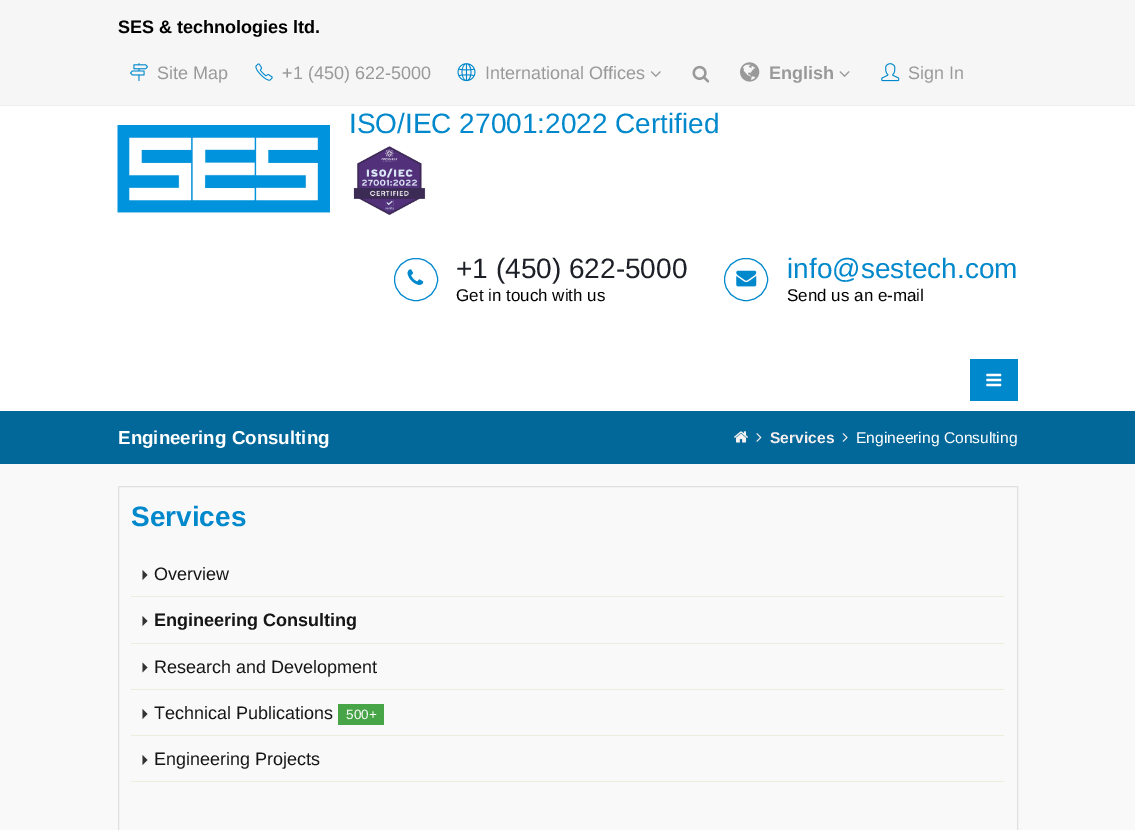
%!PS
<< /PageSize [1135 830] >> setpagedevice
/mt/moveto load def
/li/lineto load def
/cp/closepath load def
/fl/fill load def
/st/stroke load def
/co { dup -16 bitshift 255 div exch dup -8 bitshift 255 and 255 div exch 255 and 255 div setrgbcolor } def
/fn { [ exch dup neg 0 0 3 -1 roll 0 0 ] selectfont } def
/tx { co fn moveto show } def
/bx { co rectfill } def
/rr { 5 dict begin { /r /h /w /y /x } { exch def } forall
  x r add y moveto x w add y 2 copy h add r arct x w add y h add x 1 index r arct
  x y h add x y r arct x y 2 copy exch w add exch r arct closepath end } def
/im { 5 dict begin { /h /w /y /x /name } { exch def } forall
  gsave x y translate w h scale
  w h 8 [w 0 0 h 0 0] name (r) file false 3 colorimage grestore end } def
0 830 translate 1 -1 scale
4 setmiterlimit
0 0 1135 830 16#F9F9F9 bx
0 106 1135 305 16#FFFFFF bx
0 0 1135 105 16#F6F6F6 bx
0 105 1135 1 16#EDEDED bx
(media/1.raw) 130 63 18 19 im
(media/2.raw) 255 63 18 18 im
(media/3.raw) 457 63 19 19 im
(media/4.raw) 650 71 11 6 im
(media/5.raw) 692 65 18 18 im
(media/6.raw) 740 62 20 20 im
(media/7.raw) 839 71 11 6 im
(media/8.raw) 881 63 19 19 im
(media/9.raw) 117 125 213 88 im
(media/10.raw) 353 146 73 69 im
16#0088CC co
394.5 258.5 43 42 21 rr st
(media/11.raw) 407 269 17 16 im
724.5 258.5 43 42 21 rr st
(media/12.raw) 736 270 21 17 im
970 359 48 42 16#0088CC bx
(media/13.raw) 986 373 16 14 im
0 411 1135 53 16#02689A bx
(media/14.raw) 734 431 14 12 im
(media/15.raw) 756 433 6 9 im
(media/16.raw) 842 433 6 9 im
16#E0E0E0 co
118.5 486.5 899 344 rectstroke
131 596 873 1 16#EDEDDE bx
16#333333 co
142.5 580 mt 142.5 570 li 147.5 575 li cp fl
131 643 873 1 16#EDEDDE bx
16#333333 co
142.5 626 mt 142.5 616 li 147.5 621 li cp fl
131 689 873 1 16#EDEDDE bx
16#333333 co
142.5 672.5 mt 142.5 662.5 li 147.5 667.5 li cp fl
131 735 873 1 16#EDEDDE bx
16#333333 co
142.5 719 mt 142.5 709 li 147.5 714 li cp fl
338 704 46 21 16#47A447 bx
131 781 873 1 16#EDEDDE bx
16#333333 co
142.5 765 mt 142.5 755 li 147.5 760 li cp fl
(SES & technologies ltd.) 118 33 /LiberationSans-Bold 18 16#000000 tx
(Site Map) 157 79 /LiberationSans-Regular 18 16#999999 tx
(+1 \(450\) 622-5000) 282 79 /LiberationSans-Regular 18 16#999999 tx
(International Offices) 485 79 /LiberationSans-Regular 18 16#999999 tx
(English) 769 79 /LiberationSans-Bold 18 16#999999 tx
(Sign In) 908 79 /LiberationSans-Regular 18 16#999999 tx
(ISO/IEC 27001:2022 Certified) 349 133 /LiberationSans-Regular 28 16#0088CC tx
(+1 \(450\) 622-5000) 456 278 /LiberationSans-Regular 28 16#1D2127 tx
(Get in touch with us) 456 301 /LiberationSans-Regular 17 16#000000 tx
(info@sestech.com) 787 278 /LiberationSans-Regular 28 16#0088CC tx
(Send us an e-mail) 787 301 /LiberationSans-Regular 17 16#000000 tx
(Engineering Consulting) 118 444 /LiberationSans-Bold 18.75 16#FFFFFF tx
(Services) 770 443 /LiberationSans-Bold 15.6 16#F5EEEE tx
(Engineering Consulting) 856 443 /LiberationSans-Regular 15.6 16#FFFFFF tx
(Services) 131 526 /LiberationSans-Bold 28 16#0088CC tx
(Overview) 154 580 /LiberationSans-Regular 18 16#171616 tx
(Engineering Consulting) 154 626 /LiberationSans-Bold 18 16#171616 tx
(Research and Development) 154 673 /LiberationSans-Regular 18 16#171616 tx
(Technical Publications) 154 719 /LiberationSans-Regular 18 16#171616 tx
(500+) 346 719 /LiberationSans-Regular 13.5 16#FFFFFF tx
(Engineering Projects) 154 765 /LiberationSans-Regular 18 16#171616 tx
showpage
